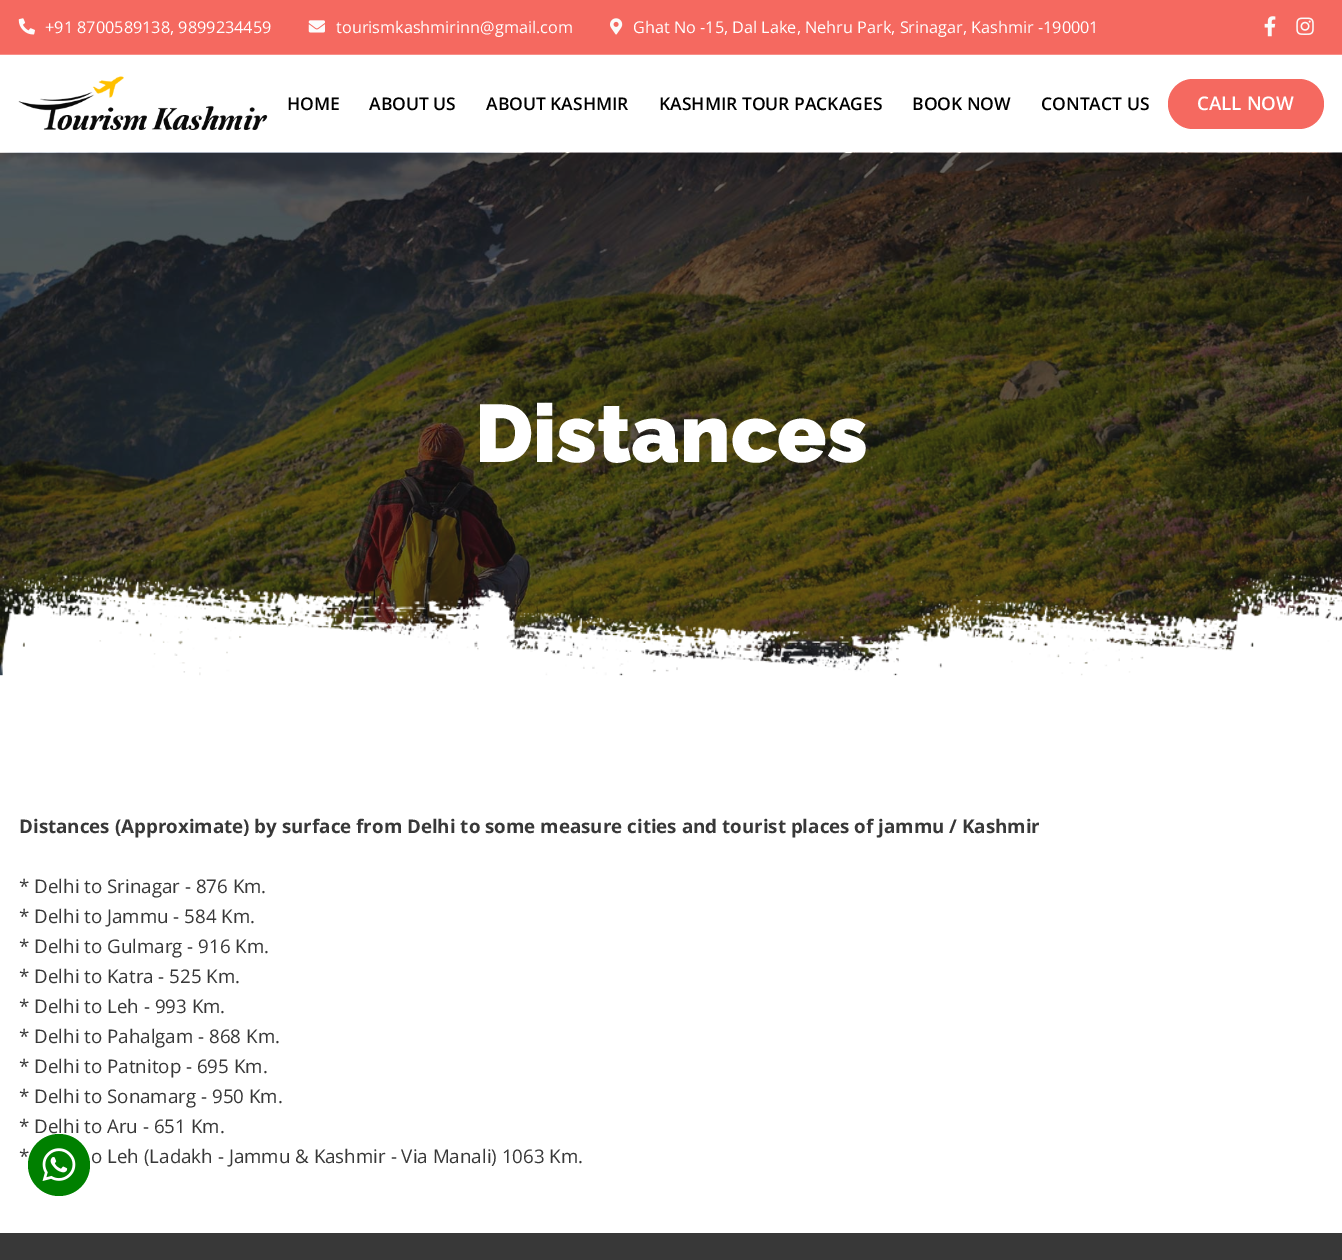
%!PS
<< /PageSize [1342 1260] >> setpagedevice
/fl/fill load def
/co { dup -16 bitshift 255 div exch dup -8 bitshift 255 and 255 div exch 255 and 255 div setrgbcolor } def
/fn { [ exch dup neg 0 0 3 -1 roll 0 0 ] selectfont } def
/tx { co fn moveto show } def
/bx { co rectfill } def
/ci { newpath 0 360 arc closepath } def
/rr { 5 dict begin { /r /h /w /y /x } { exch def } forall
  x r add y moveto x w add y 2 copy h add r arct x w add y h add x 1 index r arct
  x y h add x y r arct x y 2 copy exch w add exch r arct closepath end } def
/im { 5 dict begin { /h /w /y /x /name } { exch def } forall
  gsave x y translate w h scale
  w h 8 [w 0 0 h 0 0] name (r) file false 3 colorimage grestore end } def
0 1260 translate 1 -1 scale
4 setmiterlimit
0 0 1342 1260 16#FFFFFF bx
0 0 1342 54 16#F56960 bx
0 54 1342 1 16#F88F88 bx
(media/1.raw) 18 18 17 17 im
(media/2.raw) 308 20 17 13 im
(media/3.raw) 610 18 13 17 im
(media/4.raw) 1264 16 12 21 im
(media/5.raw) 1296 17 18 18 im
(media/6.raw) 18 76 250 54 im
16#F56960 co
1168 79 156 50 25 rr fl
(media/7.raw) 0 152 1342 524 im
(media/8.raw) 0 560 1342 125 im
0 1233 1342 27 16#383838 bx
(+91 8700589138, 9899234459) 45 33 /OpenSans-Regular 16.25 16#FFFFFF tx
(tourismkashmirinn@gmail.com) 336 33 /OpenSans-Regular 16.25 16#FFFFFF tx
(Ghat No -15, Dal Lake, Nehru Park, Srinagar, Kashmir -190001) 633 33 /OpenSans-Regular 16.25 16#FFFFFF tx
(HOME) 287 110 /OpenSans-SemiBold 17.5 16#000000 tx
(ABOUT US) 369 110 /OpenSans-SemiBold 17.5 16#000000 tx
(ABOUT KASHMIR) 486 110 /OpenSans-SemiBold 17.5 16#000000 tx
(KASHMIR TOUR PACKAGES) 659 110 /OpenSans-SemiBold 17.5 16#000000 tx
(BOOK NOW) 912 110 /OpenSans-SemiBold 17.5 16#000000 tx
(CONTACT US) 1041 110 /OpenSans-SemiBold 17.5 16#000000 tx
(CALL NOW) 1197 110 /OpenSans-SemiBold 18.75 16#FFFFFF tx
(Distances) 475 462 /Raleway-Black 81.25 16#FFFFFF tx
(Distances \(Approximate\) by surface from Delhi to some measure cities and tourist places of jammu / Kashmir) 19 833 /OpenSans-Bold 18.75 16#383838 tx
(* Delhi to Srinagar - 876 Km.) 19 893 /OpenSans-Regular 18.75 16#383838 tx
(* Delhi to Jammu - 584 Km.) 19 923 /OpenSans-Regular 18.75 16#383838 tx
(* Delhi to Gulmarg - 916 Km.) 19 953 /OpenSans-Regular 18.75 16#383838 tx
(* Delhi to Katra - 525 Km.) 19 983 /OpenSans-Regular 18.75 16#383838 tx
(* Delhi to Leh - 993 Km.) 19 1013 /OpenSans-Regular 18.75 16#383838 tx
(* Delhi to Pahalgam - 868 Km.) 19 1043 /OpenSans-Regular 18.75 16#383838 tx
(* Delhi to Patnitop - 695 Km.) 19 1073 /OpenSans-Regular 18.75 16#383838 tx
(* Delhi to Sonamarg - 950 Km.) 19 1103 /OpenSans-Regular 18.75 16#383838 tx
(* Delhi to Aru - 651 Km.) 19 1133 /OpenSans-Regular 18.75 16#383838 tx
(*) 19 1163 /OpenSans-Regular 18.75 16#383838 tx
(o Leh \(Ladakh - Jammu & Kashmir - Via Manali\) 1063 Km.) 91 1163 /OpenSans-Regular 18.75 16#383838 tx
16#008000 co
59 1165 31 ci fl
(media/9.raw) 42 1148 34 33 im
showpage
